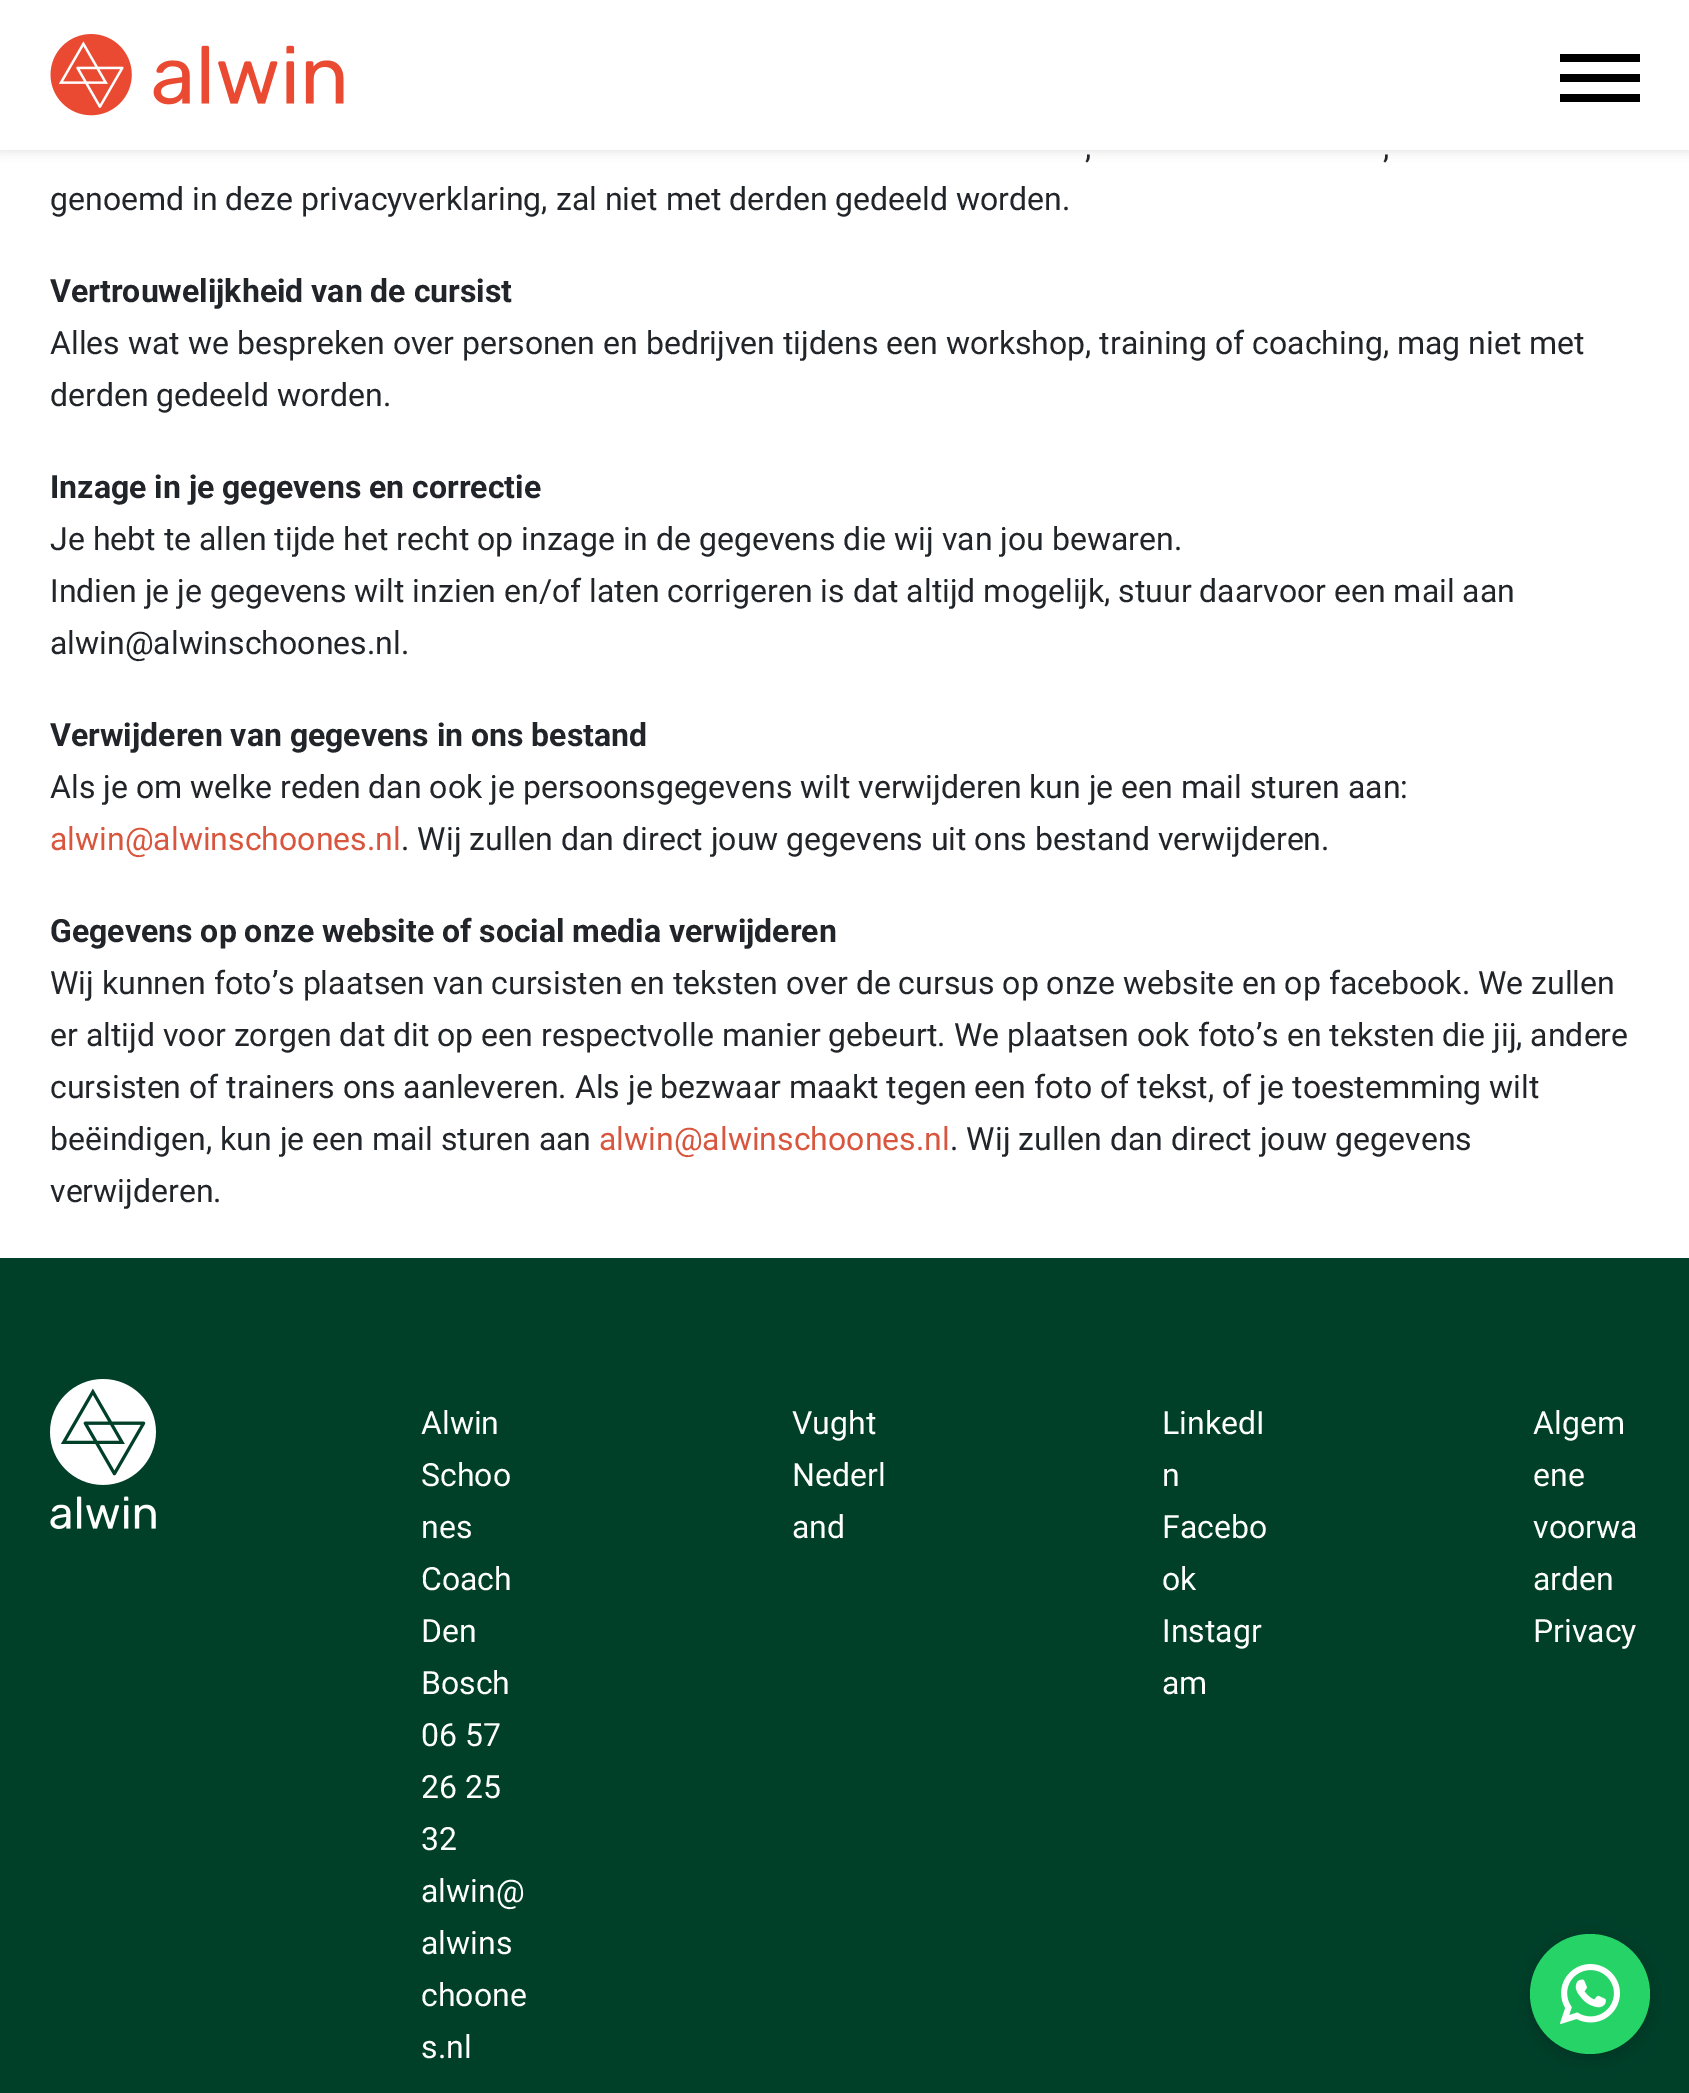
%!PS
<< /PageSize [1689 2093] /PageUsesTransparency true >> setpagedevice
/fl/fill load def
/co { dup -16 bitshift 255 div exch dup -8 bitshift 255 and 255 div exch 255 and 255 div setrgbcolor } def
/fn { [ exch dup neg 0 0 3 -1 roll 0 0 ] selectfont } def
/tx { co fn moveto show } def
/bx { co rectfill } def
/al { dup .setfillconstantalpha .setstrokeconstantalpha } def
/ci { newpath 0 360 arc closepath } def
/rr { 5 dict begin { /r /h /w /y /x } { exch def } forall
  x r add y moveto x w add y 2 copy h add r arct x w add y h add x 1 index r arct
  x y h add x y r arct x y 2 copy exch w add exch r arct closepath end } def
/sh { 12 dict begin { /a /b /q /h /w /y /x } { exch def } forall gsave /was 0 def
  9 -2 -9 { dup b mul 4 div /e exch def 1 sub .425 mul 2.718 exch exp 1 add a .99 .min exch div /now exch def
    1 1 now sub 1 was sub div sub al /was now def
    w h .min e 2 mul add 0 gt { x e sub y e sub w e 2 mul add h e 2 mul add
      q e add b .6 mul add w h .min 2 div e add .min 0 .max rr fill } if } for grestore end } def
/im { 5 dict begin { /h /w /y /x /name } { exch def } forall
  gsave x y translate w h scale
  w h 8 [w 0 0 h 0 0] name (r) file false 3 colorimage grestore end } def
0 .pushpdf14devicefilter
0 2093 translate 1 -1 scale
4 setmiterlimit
0 0 1689 2093 16#FFFFFF bx
16#000000 co
0 2 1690 150 0 5 .1 sh
0 0 1689 150 16#FFFFFF bx
(media/1.raw) 50 34 294 82 im
1560 74 80 8 16#000000 bx
1560 54 80 8 16#000000 bx
1560 94 80 8 16#000000 bx
0 1258 1689 835 16#004029 bx
(media/2.raw) 50 1379 106 150 im
16#000000 co
1530 1938 120 120 60 10 .2 sh
16#25D366 co
1590 1994 60 ci fl
(media/3.raw) 1560 1964 60 60 im
(,) 1085 158 /Roboto-Regular 32 16#212529 tx
(,) 1383 158 /Roboto-Regular 32 16#212529 tx
(genoemd in deze privacyverklaring, zal niet met derden gedeeld worden.) 50 210 /Roboto-Regular 32 16#212529 tx
(Vertrouwelijkheid van de cursist) 50 302 /Roboto-Bold 32 16#212529 tx
(Alles wat we bespreken over personen en bedrijven tijdens een workshop, training of coaching, mag niet met) 50 354 /Roboto-Regular 32 16#212529 tx
(derden gedeeld worden.) 50 406 /Roboto-Regular 32 16#212529 tx
(Inzage in je gegevens en correctie) 50 498 /Roboto-Bold 32 16#212529 tx
(Je hebt te allen tijde het recht op inzage in de gegevens die wij van jou bewaren.) 50 550 /Roboto-Regular 32 16#212529 tx
(Indien je je gegevens wilt inzien en/of laten corrigeren is dat altijd mogelijk, stuur daarvoor een mail aan) 50 602 /Roboto-Regular 32 16#212529 tx
(alwin@alwinschoones.nl.) 50 654 /Roboto-Regular 32 16#212529 tx
(Verwijderen van gegevens in ons bestand) 50 746 /Roboto-Bold 32 16#212529 tx
(Als je om welke reden dan ook je persoonsgegevens wilt verwijderen kun je een mail sturen aan:) 50 798 /Roboto-Regular 32 16#212529 tx
(alwin@alwinschoones.nl) 50 850 /Roboto-Regular 32 16#D8563D tx
(. Wij zullen dan direct jouw gegevens uit ons bestand verwijderen.) 401 850 /Roboto-Regular 32 16#212529 tx
(Gegevens op onze website of social media verwijderen) 50 942 /Roboto-Bold 32 16#212529 tx
(Wij kunnen foto’s plaatsen van cursisten en teksten over de cursus op onze website en op facebook. We zullen) 50 994 /Roboto-Regular 32 16#212529 tx
(er altijd voor zorgen dat dit op een respectvolle manier gebeurt. We plaatsen ook foto’s en teksten die jij, andere) 50 1046 /Roboto-Regular 32 16#212529 tx
(cursisten of trainers ons aanleveren. Als je bezwaar maakt tegen een foto of tekst, of je toestemming wilt) 50 1098 /Roboto-Regular 32 16#212529 tx
(beëindigen, kun je een mail sturen aan) 50 1150 /Roboto-Regular 32 16#212529 tx
(alwin@alwinschoones.nl) 599 1150 /Roboto-Regular 32 16#D8563D tx
(. Wij zullen dan direct jouw gegevens) 950 1150 /Roboto-Regular 32 16#212529 tx
(verwijderen.) 50 1202 /Roboto-Regular 32 16#212529 tx
(Alwin) 421 1434 /Roboto-Regular 32 16#FFFFFF tx
(Schoo) 421 1486 /Roboto-Regular 32 16#FFFFFF tx
(nes) 421 1538 /Roboto-Regular 32 16#FFFFFF tx
(Coach) 421 1590 /Roboto-Regular 32 16#FFFFFF tx
(Den) 421 1642 /Roboto-Regular 32 16#FFFFFF tx
(Bosch) 421 1694 /Roboto-Regular 32 16#FFFFFF tx
(06 57) 421 1746 /Roboto-Regular 32 16#FFFFFF tx
(26 25) 421 1798 /Roboto-Regular 32 16#FFFFFF tx
(32) 421 1850 /Roboto-Regular 32 16#FFFFFF tx
(alwin@) 421 1902 /Roboto-Regular 32 16#FFFFFF tx
(alwins) 421 1954 /Roboto-Regular 32 16#FFFFFF tx
(choone) 421 2006 /Roboto-Regular 32 16#FFFFFF tx
(s.nl) 421 2058 /Roboto-Regular 32 16#FFFFFF tx
(Vught) 792 1434 /Roboto-Regular 32 16#FFFFFF tx
(Nederl) 792 1486 /Roboto-Regular 32 16#FFFFFF tx
(and) 792 1538 /Roboto-Regular 32 16#FFFFFF tx
(LinkedI) 1162 1434 /Roboto-Regular 32 16#FFFFFF tx
(n) 1162 1486 /Roboto-Regular 32 16#FFFFFF tx
(Facebo) 1162 1538 /Roboto-Regular 32 16#FFFFFF tx
(ok) 1162 1590 /Roboto-Regular 32 16#FFFFFF tx
(Instagr) 1162 1642 /Roboto-Regular 32 16#FFFFFF tx
(am) 1162 1694 /Roboto-Regular 32 16#FFFFFF tx
(Algem) 1533 1434 /Roboto-Regular 32 16#FFFFFF tx
(ene) 1533 1486 /Roboto-Regular 32 16#FFFFFF tx
(voorwa) 1533 1538 /Roboto-Regular 32 16#FFFFFF tx
(arden) 1533 1590 /Roboto-Regular 32 16#FFFFFF tx
(Privacy) 1533 1642 /Roboto-Regular 32 16#FFFFFF tx
.poppdf14devicefilter showpage
